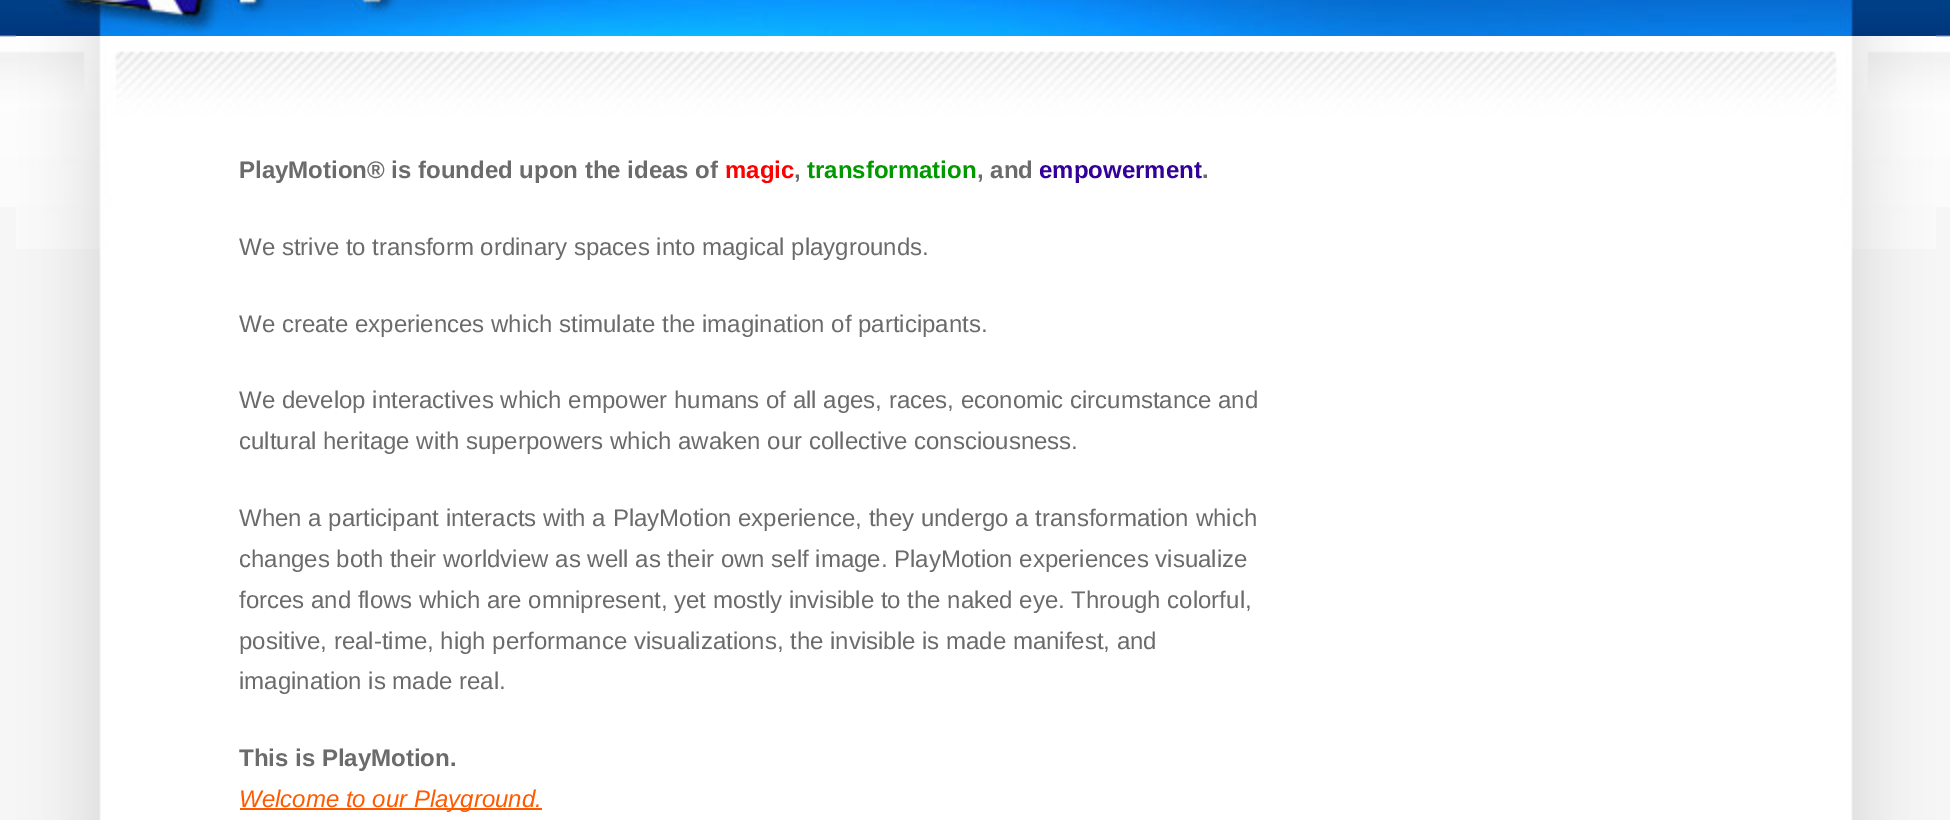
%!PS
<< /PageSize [1950 820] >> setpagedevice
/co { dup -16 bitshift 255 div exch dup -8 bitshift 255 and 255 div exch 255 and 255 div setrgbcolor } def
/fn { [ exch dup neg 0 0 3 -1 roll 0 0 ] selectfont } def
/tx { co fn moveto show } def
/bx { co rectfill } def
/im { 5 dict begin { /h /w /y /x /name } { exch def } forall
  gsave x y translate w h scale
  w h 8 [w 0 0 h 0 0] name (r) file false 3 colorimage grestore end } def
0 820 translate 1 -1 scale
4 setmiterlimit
0 0 1950 820 16#F6F6F6 bx
(media/1.raw) 0 0 1950 207 im
(media/2.raw) 16 249 1920 571 im
(media/3.raw) 16 0 1920 36 im
(media/4.raw) 16 36 1920 213 im
240 808 302 2 16#FF5A00 bx
(PlayMotion® is founded upon the ideas of) 239 178 /LiberationSans-Bold 24 16#6B6B6B tx
(magic) 725 178 /LiberationSans-Bold 24 16#FF0000 tx
(,) 794 178 /LiberationSans-Bold 24 16#6B6B6B tx
(transformation) 807 178 /LiberationSans-Bold 24 16#009900 tx
(, and) 977 178 /LiberationSans-Bold 24 16#6B6B6B tx
(empowerment) 1039 178 /LiberationSans-Bold 24 16#330099 tx
(.) 1202 178 /LiberationSans-Bold 24 16#6B6B6B tx
(We strive to transform ordinary spaces into magical playgrounds.) 239 255 /LiberationSans-Regular 24 16#6B6B6B tx
(We create experiences which stimulate the imagination of participants.) 239 332 /LiberationSans-Regular 24 16#6B6B6B tx
(We develop interactives which empower humans of all ages, races, economic circumstance and) 239 408 /LiberationSans-Regular 24 16#6B6B6B tx
(cultural heritage with superpowers which awaken our collective consciousness.) 239 449 /LiberationSans-Regular 24 16#6B6B6B tx
(When a participant interacts with a PlayMotion experience, they undergo a transformation which) 239 526 /LiberationSans-Regular 24 16#6B6B6B tx
(changes both their worldview as well as their own self image. PlayMotion experiences visualize) 239 567 /LiberationSans-Regular 24 16#6B6B6B tx
(forces and flows which are omnipresent, yet mostly invisible to the naked eye. Through colorful,) 239 608 /LiberationSans-Regular 24 16#6B6B6B tx
(positive, real-time, high performance visualizations, the invisible is made manifest, and) 239 649 /LiberationSans-Regular 24 16#6B6B6B tx
(imagination is made real.) 239 689 /LiberationSans-Regular 24 16#6B6B6B tx
(This is PlayMotion.) 239 766 /LiberationSans-Bold 24 16#6B6B6B tx
(Welcome to our Playground.) 239 807 /LiberationSans-Italic 24 16#FF5A00 tx
showpage
